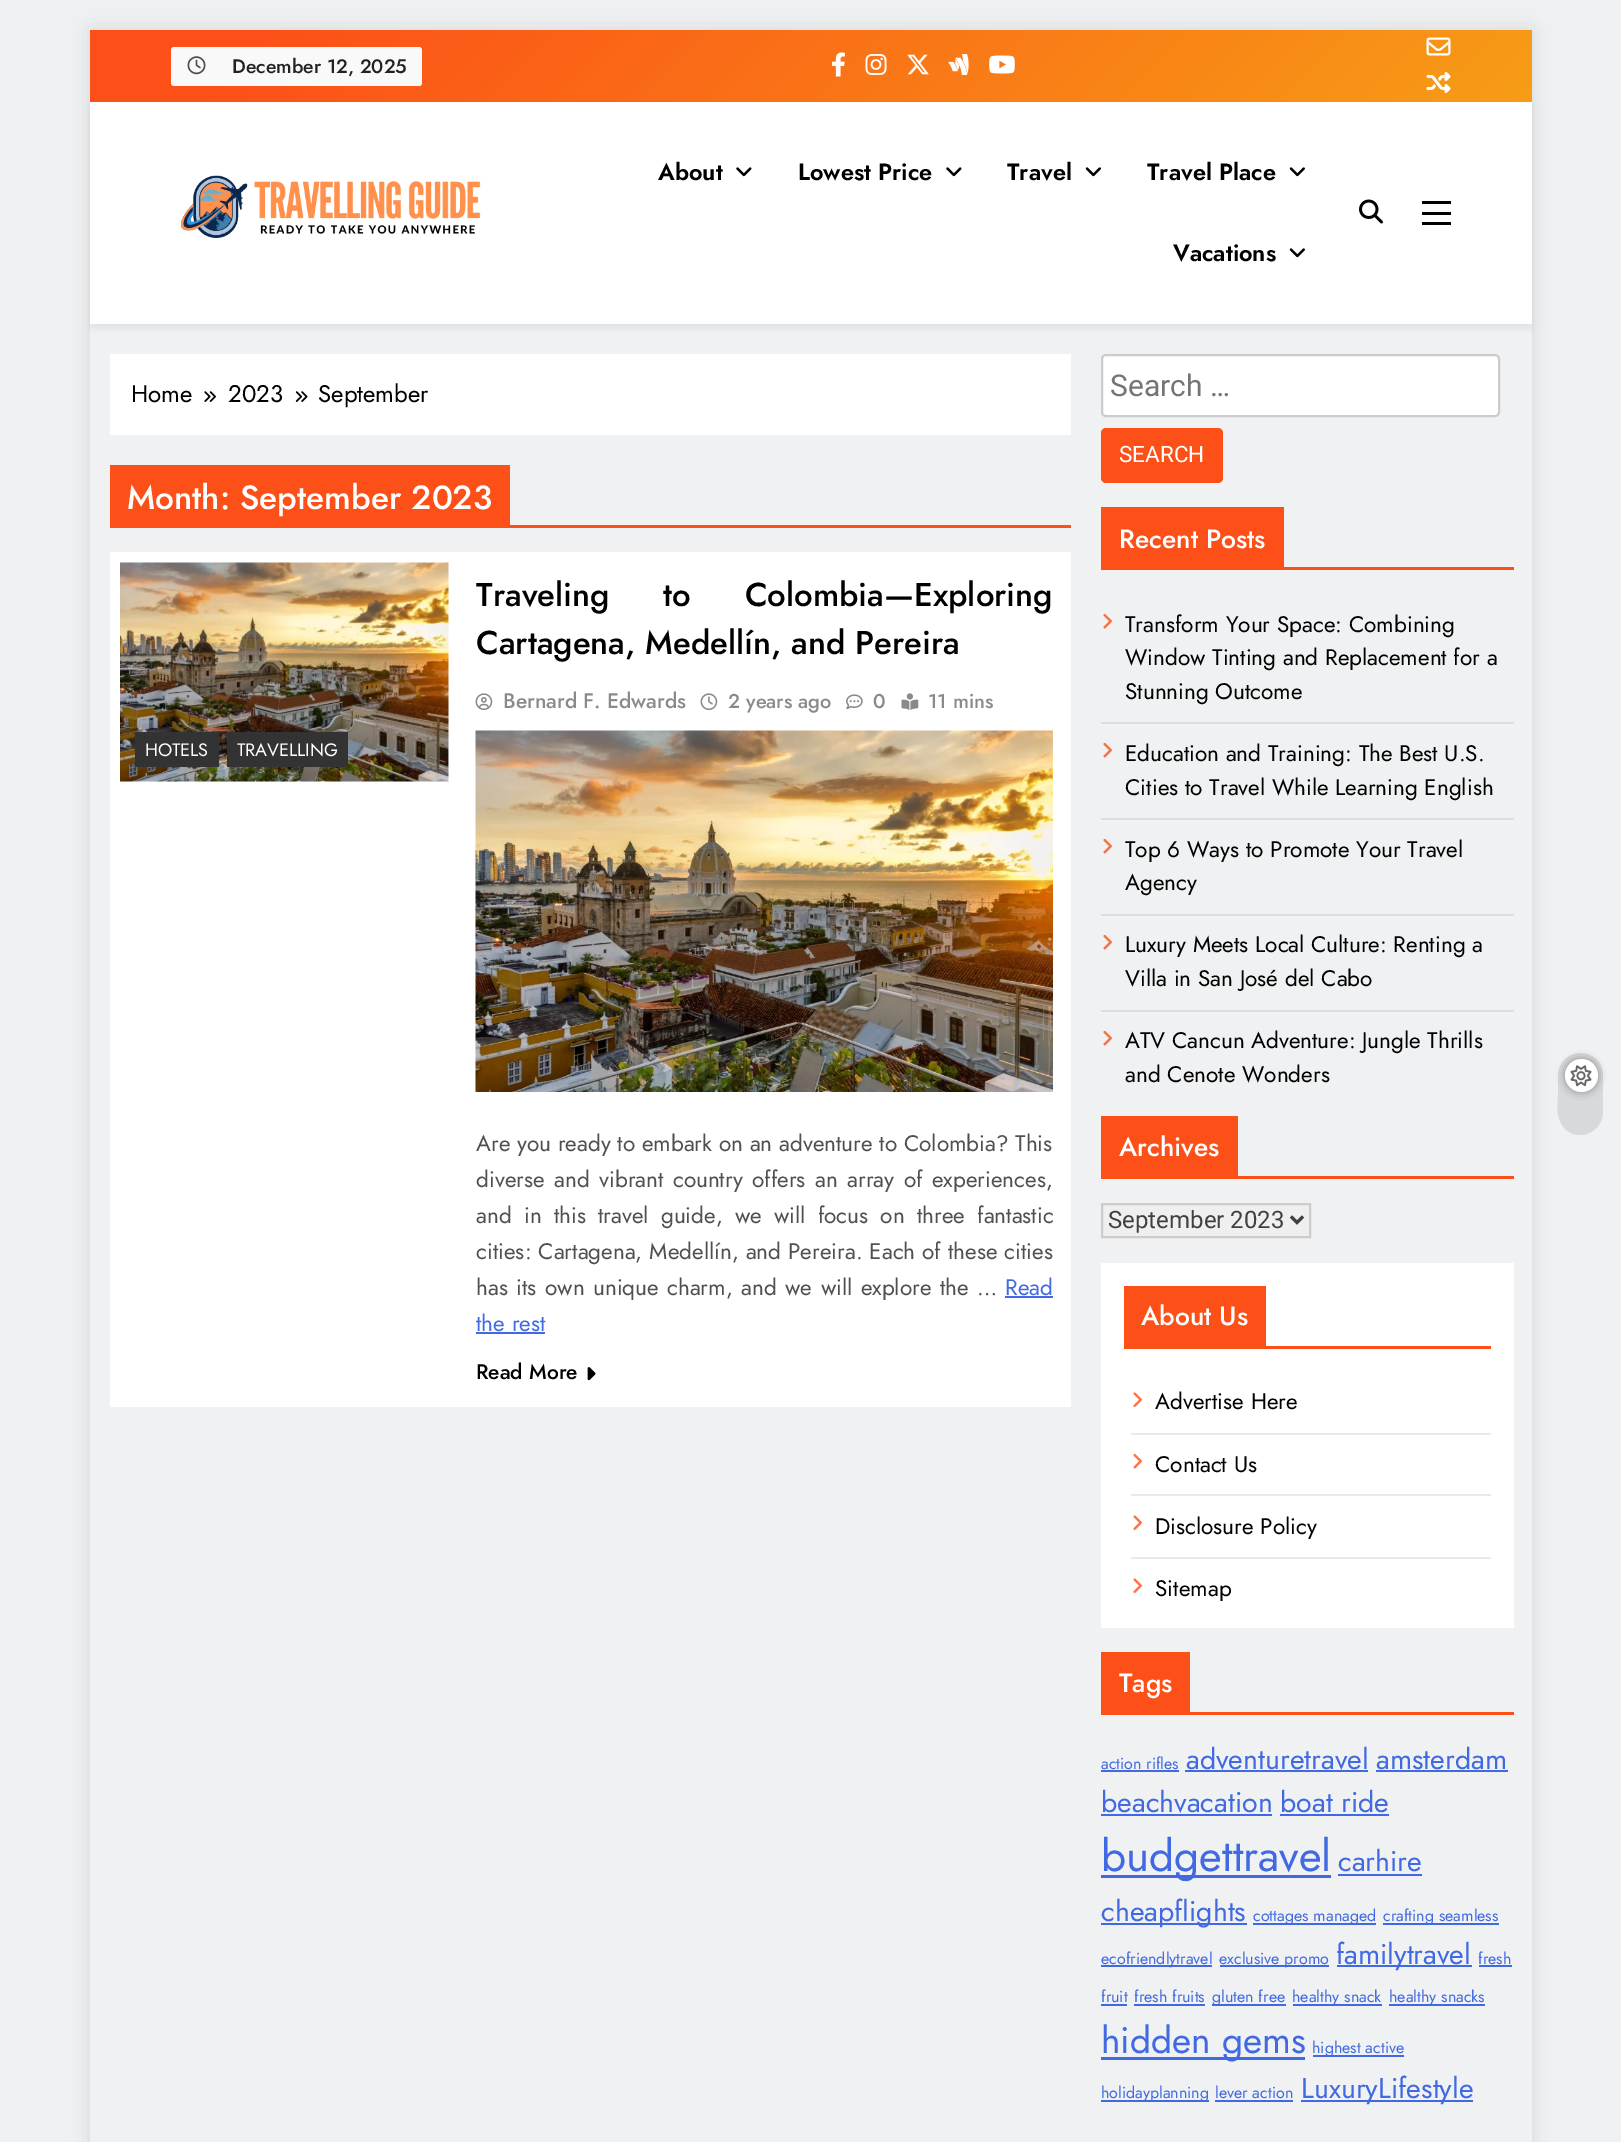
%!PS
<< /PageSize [1621 2142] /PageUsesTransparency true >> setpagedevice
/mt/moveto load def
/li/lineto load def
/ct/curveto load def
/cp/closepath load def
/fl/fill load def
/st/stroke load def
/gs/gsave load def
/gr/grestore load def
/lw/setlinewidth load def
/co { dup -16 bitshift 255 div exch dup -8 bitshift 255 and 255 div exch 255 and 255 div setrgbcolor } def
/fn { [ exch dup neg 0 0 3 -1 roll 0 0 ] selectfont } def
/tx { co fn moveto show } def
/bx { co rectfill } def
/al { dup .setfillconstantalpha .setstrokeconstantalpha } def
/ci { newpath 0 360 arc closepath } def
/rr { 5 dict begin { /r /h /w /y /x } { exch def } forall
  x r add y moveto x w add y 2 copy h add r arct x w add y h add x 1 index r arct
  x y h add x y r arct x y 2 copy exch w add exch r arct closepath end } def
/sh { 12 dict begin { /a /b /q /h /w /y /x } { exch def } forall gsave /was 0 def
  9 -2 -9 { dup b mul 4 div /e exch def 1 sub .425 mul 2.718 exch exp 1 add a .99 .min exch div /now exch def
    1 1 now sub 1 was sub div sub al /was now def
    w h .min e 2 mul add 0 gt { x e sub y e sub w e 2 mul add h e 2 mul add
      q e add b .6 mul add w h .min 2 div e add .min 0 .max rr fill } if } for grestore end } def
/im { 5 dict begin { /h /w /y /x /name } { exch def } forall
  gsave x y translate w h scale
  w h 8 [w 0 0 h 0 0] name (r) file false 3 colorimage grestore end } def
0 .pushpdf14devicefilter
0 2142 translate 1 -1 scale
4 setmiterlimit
0 0 1621 2142 16#F0F1F2 bx
gs
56 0 mt 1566 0 li 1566 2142 li 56 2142 li cp 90 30 mt 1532 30 li 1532 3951 li 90 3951 li cp eoclip newpath
16#000000 co
90 30 1442 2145 0 11 .1 sh
gr
gs 90 30 mt 1532 30 li 1532 102 li 90 102 li cp clip newpath
<< /ShadingType 2 /ColorSpace /DeviceRGB /Coords [432 -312 1189 444] /Extend [true true] /Function << /FunctionType 3 /Domain [0 1] /Functions [<< /FunctionType 2 /Domain [0 1] /C0 [.992 .31 .094] /C1 [.992 .31 .094] /N 1 >> << /FunctionType 2 /Domain [0 1] /C0 [.992 .31 .094] /C1 [.969 .616 .086] /N 1 >>] /Bounds [.1] /Encode [0 1 0 1] >> >> shfill gr
16#F9F9F9 co
171 47 251 39 3 rr fl
(media/1.raw) 187 56 19 19 im
(media/2.raw) 832 52 13 25 im
(media/3.raw) 865 54 22 21 im
(media/4.raw) 907 54 22 21 im
(media/5.raw) 948 54 21 21 im
(media/6.raw) 989 55 26 19 im
(media/7.raw) 1426 37 25 19 im
(media/8.raw) 1426 72 25 21 im
16#000000 co
90 107 1442 222 0 3 .05 sh
90 102 1442 222 16#FFFFFF bx
(media/9.raw) 180 175 301 63 im
(media/10.raw) 736 167 16 10 im
(media/10.raw) 946 167 16 10 im
(media/11.raw) 1085 167 16 10 im
(media/11.raw) 1289 167 16 10 im
(media/11.raw) 1289 248 16 10 im
(media/12.raw) 1359 199 24 25 im
1422 201 29 3 16#000000 bx
1422 212 29 3 16#000000 bx
1422 222 29 3 16#000000 bx
16#D8D9DA co
1603 1076 mt 1603 1112 li 1602 1137 1569 1144 1560 1121 ct 1556 1113 1558 1102 1558 1094 ct 1558 1076 li 1559 1045 1603 1046 1603 1076 ct cp fl
16#000000 co
1565 1059 33 33 16.5 4 .35 sh
16#FFFFFF co
1581.5 1075.5 16.5 ci fl
(media/13.raw) 1570 1065 22 22 im
110 354 961 81 16#FFFFFF bx
(media/14.raw) 204 391 12 11 im
(media/15.raw) 295 391 13 11 im
510 525 561 3 16#FD4F18 bx
110 465 400 63 16#FD4F18 bx
110 552 961 855 16#FFFFFF bx
(media/16.raw) 120 562 329 220 im
135 732 84 35 16#333333 bx
227 732 121 35 16#333333 bx
(media/17.raw) 475 693 18 18 im
(media/18.raw) 700 693 18 18 im
(media/19.raw) 846 694 17 15 im
(media/20.raw) 901 693 18 17 im
(media/21.raw) 475 730 578 362 im
1005 1296 48 2 16#4169E1 bx
476 1332 69 2 16#4169E1 bx
(media/22.raw) 587 1367 9 14 im
16#FFFFFF co
1102 355 397 61 4 rr gs fl gr
16#CCCCCC co
2 lw
st
16#FD4F18 co
1101 428 122 55 5 rr fl
1284 567 230 3 16#FD4F18 bx
1101 507 183 63 16#FD4F18 bx
1101 722 413 2 16#DEDEE0 bx
(media/23.raw) 1103 613 9 16 im
1101 818 413 2 16#DEDEE0 bx
(media/23.raw) 1103 742 9 16 im
1101 914 413 2 16#DEDEE0 bx
(media/23.raw) 1103 838 9 16 im
1101 1010 413 2 16#DEDEE0 bx
(media/23.raw) 1103 934 9 16 im
(media/23.raw) 1103 1030 9 16 im
1238 1176 276 3 16#FD4F18 bx
1101 1116 137 63 16#FD4F18 bx
16#EFEFEF co
1102 1204 mt 1310 1204 li 1310 1237 li 1102 1237 li cp gs fl gr
16#CCCCCC co
st
16#404040 co
3 lw
1291 1216.5 mt 1297 1222.5 li 1303 1216.5 li st
1101 1263 413 365 16#FFFFFF bx
1266 1346 225 3 16#FD4F18 bx
1124 1286 142 63 16#FD4F18 bx
1131 1433 360 2 16#EAEAEA bx
(media/24.raw) 1133 1392 9 15 im
1131 1494 360 2 16#EAEAEA bx
(media/25.raw) 1133 1453 9 16 im
1131 1557 360 2 16#EAEAEA bx
(media/24.raw) 1133 1515 9 15 im
(media/24.raw) 1133 1578 9 15 im
1190 1712 324 3 16#FD4F18 bx
1101 1652 89 63 16#FD4F18 bx
1101 1770 78 2 16#4169E1 bx
1185 1770 183 2 16#4169E1 bx
1376 1770 132 2 16#4169E1 bx
1101 1814 171 2 16#4169E1 bx
1280 1814 109 2 16#4169E1 bx
1101 1875 230 3 16#4169E1 bx
1338 1874 84 2 16#4169E1 bx
1101 1923 146 2 16#4169E1 bx
1253 1923 123 2 16#4169E1 bx
1383 1923 116 2 16#4169E1 bx
1101 1965 111 2 16#4169E1 bx
1220 1965 109 2 16#4169E1 bx
1337 1965 135 2 16#4169E1 bx
1479 1965 33 2 16#4169E1 bx
1101 2004 26 2 16#4169E1 bx
1134 2004 71 2 16#4169E1 bx
1212 2004 74 2 16#4169E1 bx
1293 2004 89 2 16#4169E1 bx
1389 2004 96 2 16#4169E1 bx
1101 2057 204 3 16#4169E1 bx
1313 2055 91 2 16#4169E1 bx
1101 2100 108 2 16#4169E1 bx
1215 2100 78 2 16#4169E1 bx
1301 2100 172 2 16#4169E1 bx
(December 12, 2025) 232 73 /Jost-Medium 19.5 16#222222 tx
(About) 658 180 /Jost-SemiBold 23.5 16#000000 tx
(Lowest Price) 798 180 /Jost-SemiBold 23.5 16#000000 tx
(Travel) 1007 180 /Jost-SemiBold 23.5 16#000000 tx
(Travel Place) 1147 180 /Jost-SemiBold 23.5 16#000000 tx
(Vacations) 1173 261 /Jost-SemiBold 23.5 16#000000 tx
(Home) 131 402 /Jost-Regular 24 16#000000 tx
(2023) 228 402 /Jost-Regular 24 16#000000 tx
(September) 318 402 /Jost-Regular 24 16#000000 tx
(Month: September 2023) 127 509 /Jost-Medium 33.5 16#FFFFFF tx
(HOTELS) 145 756 /Jost-Regular 18 16#FFFFFF tx
(TRAVELLING) 237 756 /Jost-Regular 18 16#FFFFFF tx
/Jost-Medium 33 fn
16#000000 co
476 606 mt 44 0 32 (Traveling to Colombia—Exploring) widthshow
(Cartagena, Medellín, and Pereira) 476 654 /Jost-Medium 33 16#000000 tx
(Bernard F. Edwards) 503 708 /Jost-Medium 21 16#8A8A8C tx
(2 years ago) 728 708 /Jost-Medium 20 16#8A8A8C tx
(0) 873 708 /Jost-Medium 20 16#8A8A8C tx
(11 mins) 928 708 /Jost-Medium 20 16#8A8A8C tx
(Are you ready to embark on an adventure to Colombia? This) 476 1151 /Jost-Regular 22.5 16#505050 tx
476 1187 mt 2.75 0 32 (diverse and vibrant country offers an array of experiences,) widthshow
476 1223 mt 5.5 0 32 (and in this travel guide, we will focus on three fantastic) widthshow
476 1259 mt .25 0 32 (cities: Cartagena, Medellín, and Pereira. Each of these cities) widthshow
476 1295 mt 1.75 0 32 (has its own unique charm, and we will explore the …) widthshow
(Read) 1005 1295 /Jost-Regular 22.5 16#4169E1 tx
(the rest) 476 1331 /Jost-Regular 22.5 16#4169E1 tx
(Read More) 476 1379 /Jost-Medium 21 16#000000 tx
(Search …) 1110 396 /Roboto-Regular 30 16#757575 tx
(SEARCH) 1119 462 /Roboto-Regular 22.5 16#FFFFFF tx
(Recent Posts) 1119 548 /Jost-Medium 26.5 16#FFFFFF tx
(Transform Your Space: Combining) 1125 632 /Jost-Regular 22.5 16#000000 tx
(Window Tinting and Replacement for a) 1125 665 /Jost-Regular 22.5 16#000000 tx
(Stunning Outcome) 1125 699 /Jost-Regular 22.5 16#000000 tx
(Education and Training: The Best U.S.) 1125 761 /Jost-Regular 22.5 16#000000 tx
(Cities to Travel While Learning English) 1125 795 /Jost-Regular 22.5 16#000000 tx
(Top 6 Ways to Promote Your Travel) 1125 857 /Jost-Regular 22.5 16#000000 tx
(Agency) 1125 890 /Jost-Regular 22.5 16#000000 tx
(Luxury Meets Local Culture: Renting a) 1125 952 /Jost-Regular 22.5 16#000000 tx
(Villa in San José del Cabo) 1125 986 /Jost-Regular 22.5 16#000000 tx
(ATV Cancun Adventure: Jungle Thrills) 1125 1048 /Jost-Regular 22.5 16#000000 tx
(and Cenote Wonders) 1125 1082 /Jost-Regular 22.5 16#000000 tx
(Archives) 1119 1156 /Jost-Medium 26.5 16#FFFFFF tx
(September 2023) 1108 1228 /Roboto-Regular 24 16#404040 tx
(About Us) 1141 1325 /Jost-Medium 26.5 16#FFFFFF tx
(Advertise Here) 1155 1409 /Jost-Regular 22.5 16#000000 tx
(Contact Us) 1155 1472 /Jost-Regular 22.5 16#000000 tx
(Disclosure Policy) 1155 1534 /Jost-Regular 22.5 16#000000 tx
(Sitemap) 1155 1596 /Jost-Regular 22.5 16#000000 tx
(Tags) 1119 1692 /Jost-Medium 26.5 16#FFFFFF tx
(action rifles) 1101 1769 /Jost-Regular 16 16#4169E1 tx
(adventuretravel) 1186 1769 /Jost-Regular 28.5 16#4169E1 tx
(amsterdam) 1376 1769 /Jost-Regular 28.5 16#4169E1 tx
(beachvacation) 1101 1812 /Jost-Regular 28.5 16#4169E1 tx
(boat ride) 1280 1812 /Jost-Regular 28.5 16#4169E1 tx
(budgettravel) 1101 1871 /Jost-Regular 44 16#4169E1 tx
(carhire) 1338 1871 /Jost-Regular 28.5 16#4169E1 tx
(cheapflights) 1101 1921 /Jost-Regular 28.5 16#4169E1 tx
(cottages managed) 1253 1921 /Jost-Regular 16 16#4169E1 tx
(crafting seamless) 1383 1921 /Jost-Regular 16 16#4169E1 tx
(ecofriendlytravel) 1101 1964 /Jost-Regular 16 16#4169E1 tx
(exclusive promo) 1219 1964 /Jost-Regular 16 16#4169E1 tx
(familytravel) 1336 1964 /Jost-Regular 28.5 16#4169E1 tx
(fresh) 1478 1964 /Jost-Regular 16 16#4169E1 tx
(fruit) 1101 2002 /Jost-Regular 16 16#4169E1 tx
(fresh fruits) 1134 2002 /Jost-Regular 16 16#4169E1 tx
(gluten free) 1212 2002 /Jost-Regular 16 16#4169E1 tx
(healthy snack) 1292 2002 /Jost-Regular 16 16#4169E1 tx
(healthy snacks) 1389 2002 /Jost-Regular 16 16#4169E1 tx
(hidden gems) 1101 2053 /Jost-Regular 37 16#4169E1 tx
(highest active) 1312 2053 /Jost-Regular 16 16#4169E1 tx
(holidayplanning) 1101 2098 /Jost-Regular 16 16#4169E1 tx
(lever action) 1215 2098 /Jost-Regular 16 16#4169E1 tx
(LuxuryLifestyle) 1301 2098 /Jost-Regular 28.5 16#4169E1 tx
.poppdf14devicefilter showpage
